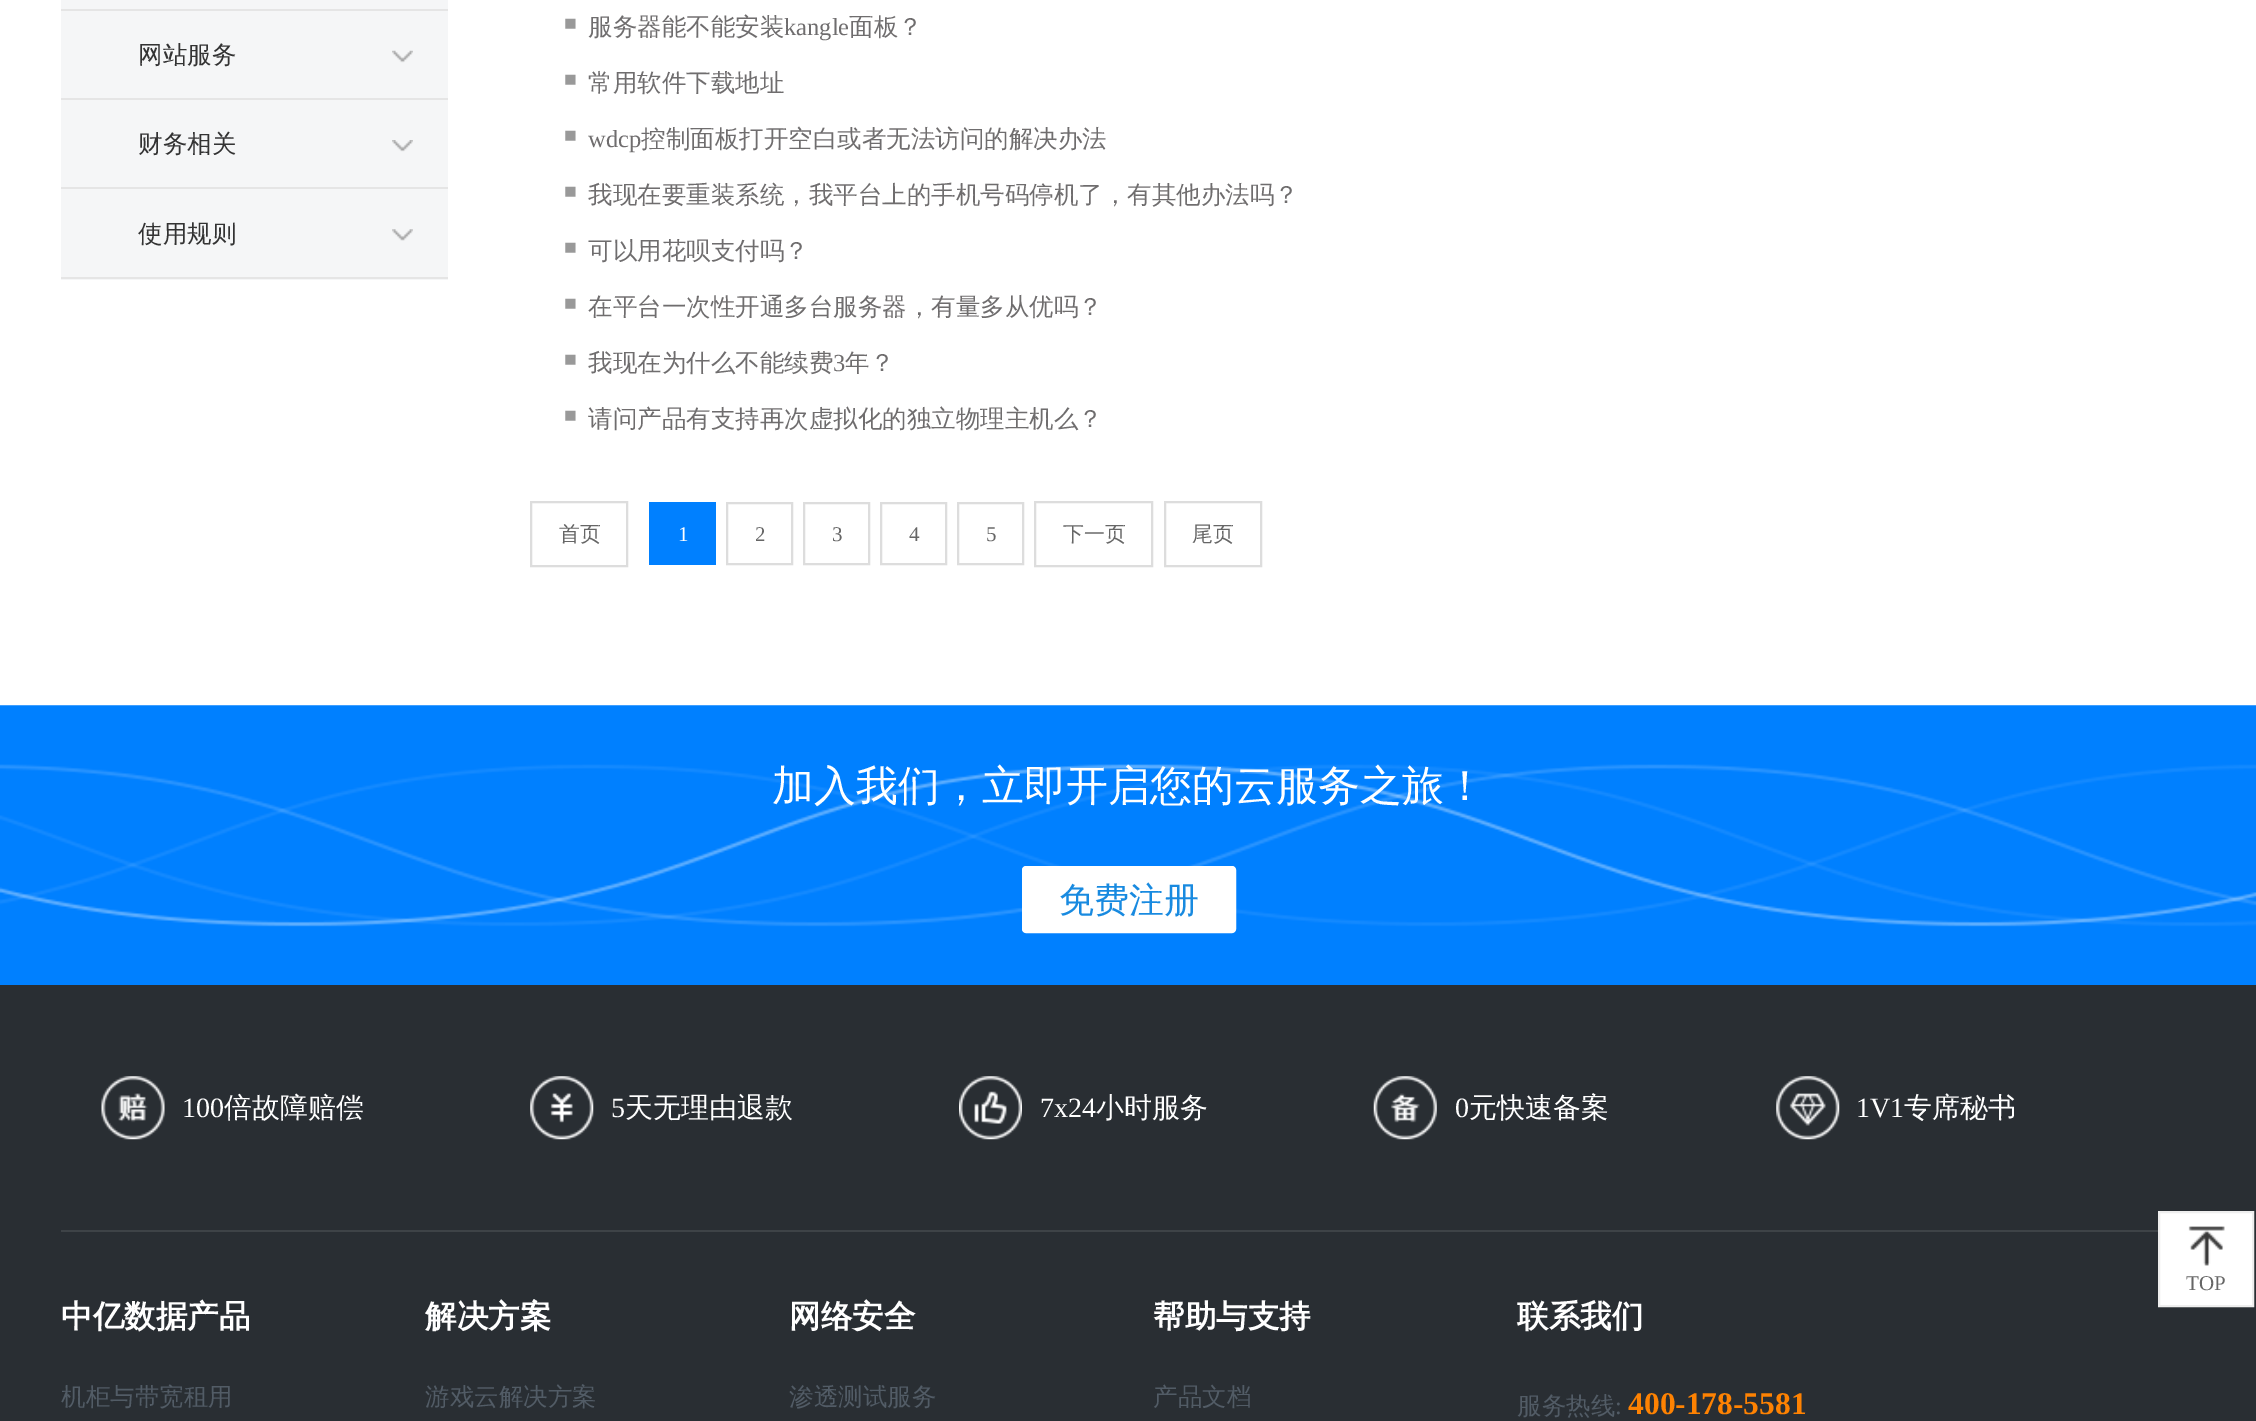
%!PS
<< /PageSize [2256 1421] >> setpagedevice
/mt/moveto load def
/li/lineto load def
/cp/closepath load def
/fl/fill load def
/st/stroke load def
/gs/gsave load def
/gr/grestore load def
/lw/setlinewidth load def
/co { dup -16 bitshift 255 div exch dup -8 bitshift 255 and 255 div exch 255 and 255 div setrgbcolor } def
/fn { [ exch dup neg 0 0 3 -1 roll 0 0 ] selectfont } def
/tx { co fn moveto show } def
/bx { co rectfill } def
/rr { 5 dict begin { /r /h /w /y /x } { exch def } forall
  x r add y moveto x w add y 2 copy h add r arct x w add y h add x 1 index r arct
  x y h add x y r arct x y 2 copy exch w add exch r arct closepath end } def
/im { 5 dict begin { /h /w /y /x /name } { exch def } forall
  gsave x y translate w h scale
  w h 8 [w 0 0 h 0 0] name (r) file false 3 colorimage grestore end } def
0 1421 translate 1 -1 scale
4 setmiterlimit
0 0 2256 1421 16#FFFFFF bx
61 0 387 280 16#F5F6F7 bx
61 9 387 2 16#E5E5E5 bx
61 98 387 2 16#E5E5E5 bx
(media/1.raw) 392 50 21 13 im
61 187 387 2 16#E5E5E5 bx
(media/2.raw) 392 140 21 12 im
61 277 387 2 16#E5E5E5 bx
(media/3.raw) 392 229 21 12 im
16#DDDDDD co
2 lw
531 502 96 64 rectstroke
649 502 67 63 16#0080FF bx
16#DDDDDD co
727 503 65 61 rectstroke
804 503 65 61 rectstroke
881 503 65 61 rectstroke
958 503 65 61 rectstroke
1035 502 117 64 rectstroke
1165 502 96 64 rectstroke
(media/4.raw) 0 705 2256 280 im
16#FFFFFF co
1023 867 212 65 3 rr gs fl gr
st
0 985 2256 436 16#292E33 bx
61 1230 2097 2 16#3E4347 bx
(media/5.raw) 101 1076 64 64 im
(media/6.raw) 530 1076 64 64 im
(media/7.raw) 959 1076 63 64 im
(media/8.raw) 1373 1076 64 64 im
(media/9.raw) 1776 1076 64 64 im
16#FFFFFF co
2159 1212 mt 2253 1212 li 2253 1306 li 2159 1306 li cp gs fl gr
16#EEEEEE co
st
(media/10.raw) 2188 1226 37 40 im
(网站服务) 138 63 /WenQuanYiZenHei-Medium 24.5 16#333333 tx
(财务相关) 138 152 /WenQuanYiZenHei-Medium 24.5 16#333333 tx
(使用规则) 138 242 /WenQuanYiZenHei-Medium 24.5 16#333333 tx
(■) 564 30 /LiberationSerif-Regular 21 16#999999 tx
(服务器能不能安装) 588 35 /WenQuanYiZenHei-Medium 24.5 16#6F6D6E tx
(kangle) 784 35 /LiberationSerif-Regular 24.5 16#6F6D6E tx
(面板？) 849 35 /WenQuanYiZenHei-Medium 24.5 16#6F6D6E tx
(■) 564 86 /LiberationSerif-Regular 21 16#999999 tx
(常用软件下载地址) 588 91 /WenQuanYiZenHei-Medium 24.5 16#6F6D6E tx
(■) 564 142 /LiberationSerif-Regular 21 16#999999 tx
(wdcp) 588 147 /LiberationSerif-Regular 24.5 16#6F6D6E tx
(控制面板打开空白或者无法访问的解决办法) 641 147 /WenQuanYiZenHei-Medium 24.5 16#6F6D6E tx
(■) 564 198 /LiberationSerif-Regular 21 16#999999 tx
(我现在要重装系统，我平台上的手机号码停机了，有其他办法吗？) 588 203 /WenQuanYiZenHei-Medium 24.5 16#6F6D6E tx
(■) 564 254 /LiberationSerif-Regular 21 16#999999 tx
(可以用花呗支付吗？) 588 259 /WenQuanYiZenHei-Medium 24.5 16#6F6D6E tx
(■) 564 310 /LiberationSerif-Regular 21 16#999999 tx
(在平台一次性开通多台服务器，有量多从优吗？) 588 315 /WenQuanYiZenHei-Medium 24.5 16#6F6D6E tx
(■) 564 366 /LiberationSerif-Regular 21 16#999999 tx
(我现在为什么不能续费) 588 371 /WenQuanYiZenHei-Medium 24.5 16#6F6D6E tx
(3) 833 371 /LiberationSerif-Regular 24.5 16#6F6D6E tx
(年？) 845 371 /WenQuanYiZenHei-Medium 24.5 16#6F6D6E tx
(■) 564 422 /LiberationSerif-Regular 21 16#999999 tx
(请问产品有支持再次虚拟化的独立物理主机么？) 588 427 /WenQuanYiZenHei-Medium 24.5 16#6F6D6E tx
(首页) 559 541 /WenQuanYiZenHei-Medium 21 16#666666 tx
(1) 678 541 /LiberationSerif-Regular 21 16#FFFFFF tx
(2) 755 541 /LiberationSerif-Regular 21 16#666666 tx
(3) 832 541 /LiberationSerif-Regular 21 16#666666 tx
(4) 909 541 /LiberationSerif-Regular 21 16#666666 tx
(5) 986 541 /LiberationSerif-Regular 21 16#666666 tx
(下一页) 1063 541 /WenQuanYiZenHei-Medium 21 16#666666 tx
(尾页) 1192 541 /WenQuanYiZenHei-Medium 21 16#666666 tx
(加入我们，立即开启您的云服务之旅！) 772 800 /WenQuanYiZenHei-Medium 42 16#FFFFFF tx
(免费注册) 1059 912 /WenQuanYiZenHei-Medium 35 16#188AE0 tx
(100) 182 1117 /LiberationSerif-Regular 28 16#FFFFFF tx
(倍故障赔偿) 224 1117 /WenQuanYiZenHei-Medium 28 16#FFFFFF tx
(5) 611 1117 /LiberationSerif-Regular 28 16#FFFFFF tx
(天无理由退款) 625 1117 /WenQuanYiZenHei-Medium 28 16#FFFFFF tx
(7x24) 1040 1117 /LiberationSerif-Regular 28 16#FFFFFF tx
(小时服务) 1096 1117 /WenQuanYiZenHei-Medium 28 16#FFFFFF tx
(0) 1455 1117 /LiberationSerif-Regular 28 16#FFFFFF tx
(元快速备案) 1469 1117 /WenQuanYiZenHei-Medium 28 16#FFFFFF tx
(1V1) 1856 1117 /LiberationSerif-Regular 28 16#FFFFFF tx
(专席秘书) 1904 1117 /WenQuanYiZenHei-Medium 28 16#FFFFFF tx
(中亿数据产品) 61 1327 /WenQuanYiZenHei-Bold 31.5 16#FFFFFF tx
(机柜与带宽租用) 61 1405 /WenQuanYiZenHei-Medium 24.5 16#525C66 tx
(解决方案) 425 1327 /WenQuanYiZenHei-Bold 31.5 16#FFFFFF tx
(游戏云解决方案) 425 1405 /WenQuanYiZenHei-Medium 24.5 16#525C66 tx
(网络安全) 789 1327 /WenQuanYiZenHei-Bold 31.5 16#FFFFFF tx
(渗透测试服务) 789 1405 /WenQuanYiZenHei-Medium 24.5 16#525C66 tx
(帮助与支持) 1153 1327 /WenQuanYiZenHei-Bold 31.5 16#FFFFFF tx
(产品文档) 1153 1405 /WenQuanYiZenHei-Medium 24.5 16#525C66 tx
(联系我们) 1517 1327 /WenQuanYiZenHei-Bold 31.5 16#FFFFFF tx
(服务热线) 1517 1414 /WenQuanYiZenHei-Medium 24.5 16#525C66 tx
(:) 1615 1414 /LiberationSerif-Regular 24.5 16#525C66 tx
(400-178-5581) 1628 1414 /LiberationSerif-Bold 31.5 16#FE8202 tx
(TOP) 2186 1290 /LiberationSerif-Regular 21 16#666666 tx
showpage
